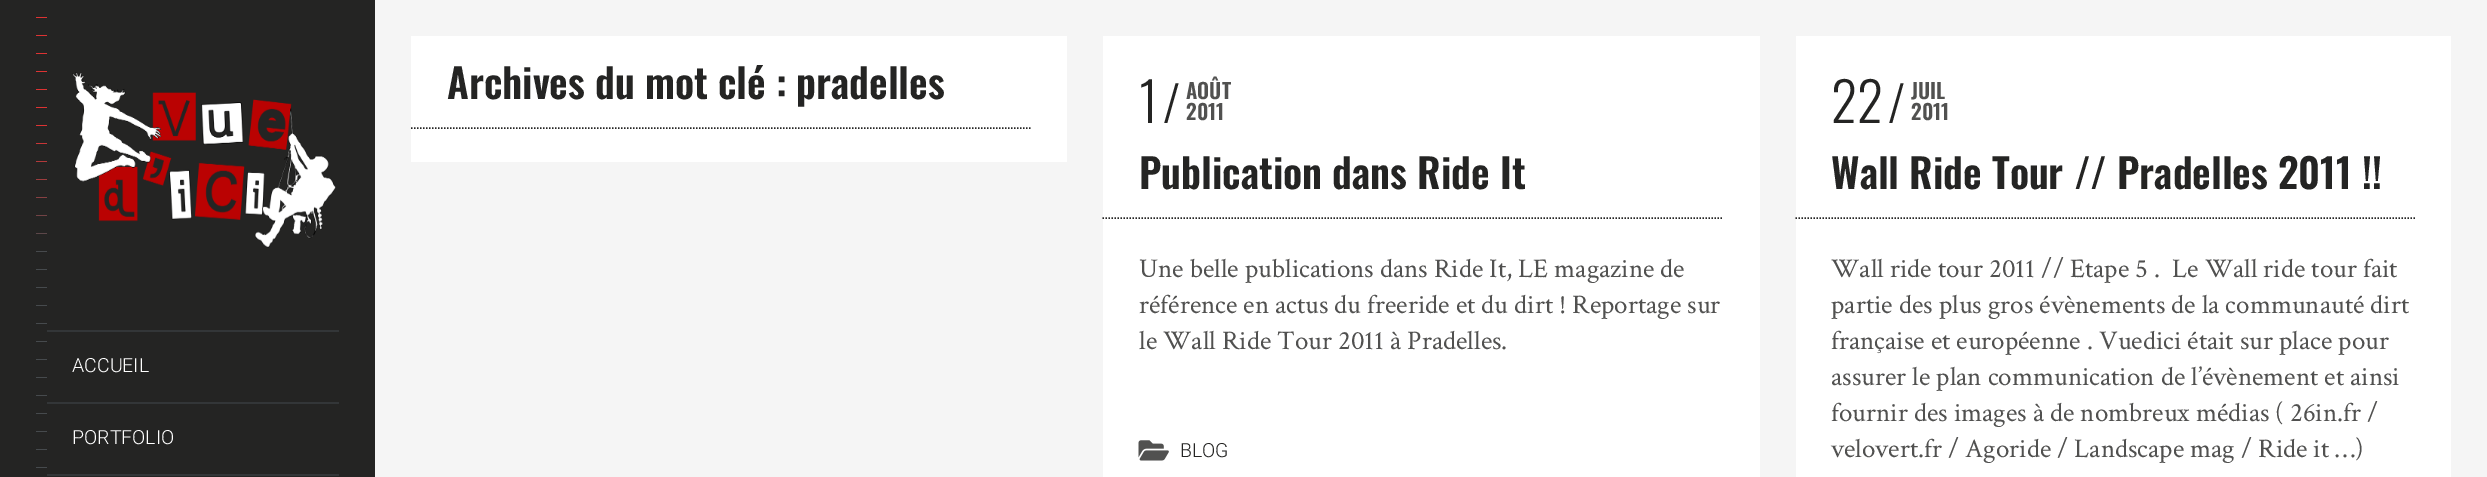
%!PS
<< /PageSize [2487 477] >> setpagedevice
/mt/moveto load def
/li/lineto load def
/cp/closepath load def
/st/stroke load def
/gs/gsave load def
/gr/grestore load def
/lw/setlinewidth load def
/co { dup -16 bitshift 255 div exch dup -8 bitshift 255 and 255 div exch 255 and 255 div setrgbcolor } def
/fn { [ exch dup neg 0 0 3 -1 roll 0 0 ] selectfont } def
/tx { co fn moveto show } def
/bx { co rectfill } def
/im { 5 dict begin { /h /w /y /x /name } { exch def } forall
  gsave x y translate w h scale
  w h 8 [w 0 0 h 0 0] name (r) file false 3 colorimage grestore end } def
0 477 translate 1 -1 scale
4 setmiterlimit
0 0 2487 477 16#F5F5F5 bx
0 0 375 477 16#242423 bx
36 269 11 199 16#464A4D bx
gs 36 17 mt 47 17 li 47 252 li 36 252 li cp clip newpath
<< /ShadingType 2 /ColorSpace /DeviceRGB /Coords [37 0 37 252] /Extend [true true] /Function << /FunctionType 3 /Domain [0 1] /Functions [<< /FunctionType 2 /Domain [0 1] /C0 [.867 .2 .2] /C1 [.867 .2 .2] /N 1 >> << /FunctionType 2 /Domain [0 1] /C0 [.867 .2 .2] /C1 [.275 .29 .302] /N 1 >>] /Bounds [.5] /Encode [0 1 0 1] >> >> shfill gr
(media/1.raw) 36 0 11 477 im
(media/2.raw) 72 72 264 176 im
47 330 292 2 16#333638 bx
47 402 292 2 16#333638 bx
47 474 292 2 16#333638 bx
411 36 656 126 16#FFFFFF bx
16#242423 co
1.5 lw
[1.5 1.5] 0 setdash
411 128 mt 1030.5 128 li st
1103 36 657 441 16#FFFFFF bx
16#242423 co
1102.5 218 mt 1723.5 218 li st
(media/3.raw) 1138 440 31 21 im
1796 36 655 441 16#FFFFFF bx
16#242423 co
1795.5 218 mt 2415 218 li st
(ACCUEIL) 72 372 /Roboto-Light 19.5 16#FFFFFF tx
(PORTFOLIO) 72 444 /Roboto-Light 19.5 16#FFFFFF tx
(Archives du mot clé : pradelles) 447 99 /Oswald-SemiBold 40.5 16#242423 tx
(1) 1139 123 /Oswald-Light 54 16#242423 tx
(/) 1163 123 /Oswald-Light 49 16#242423 tx
(AOÛT) 1186 99 /Oswald-SemiBold 21 16#515150 tx
(2011) 1186 120 /Oswald-SemiBold 21 16#515150 tx
(Publication dans Ride It) 1139 189 /Oswald-SemiBold 40.5 16#242423 tx
(Une belle publications dans Ride It, LE magazine de) 1139 277 /CrimsonText-Regular 27 16#515150 tx
(référence en actus du freeride et du dirt ! Reportage sur) 1139 313 /CrimsonText-Regular 27 16#515150 tx
(le Wall Ride Tour 2011 à Pradelles.) 1139 349 /CrimsonText-Regular 27 16#515150 tx
(BLOG) 1180 457 /Roboto-Light 19.5 16#242423 tx
(22) 1831 123 /Oswald-Light 54 16#242423 tx
(/) 1888 123 /Oswald-Light 49 16#242423 tx
(JUIL) 1911 99 /Oswald-SemiBold 21 16#515150 tx
(2011) 1911 120 /Oswald-SemiBold 21 16#515150 tx
(Wall Ride Tour // Pradelles 2011 !!) 1831 189 /Oswald-SemiBold 40.5 16#242423 tx
(Wall ride tour 2011 // Etape 5 .  Le Wall ride tour fait) 1831 277 /CrimsonText-Regular 27 16#515150 tx
(partie des plus gros évènements de la communauté dirt) 1831 313 /CrimsonText-Regular 27 16#515150 tx
(française et européenne . Vuedici était sur place pour) 1831 349 /CrimsonText-Regular 27 16#515150 tx
(assurer le plan communication de l’évènement et ainsi) 1831 385 /CrimsonText-Regular 27 16#515150 tx
(fournir des images à de nombreux médias \( 26in.fr /) 1831 421 /CrimsonText-Regular 27 16#515150 tx
(velovert.fr / Agoride / Landscape mag / Ride it …\)) 1831 457 /CrimsonText-Regular 27 16#515150 tx
showpage
